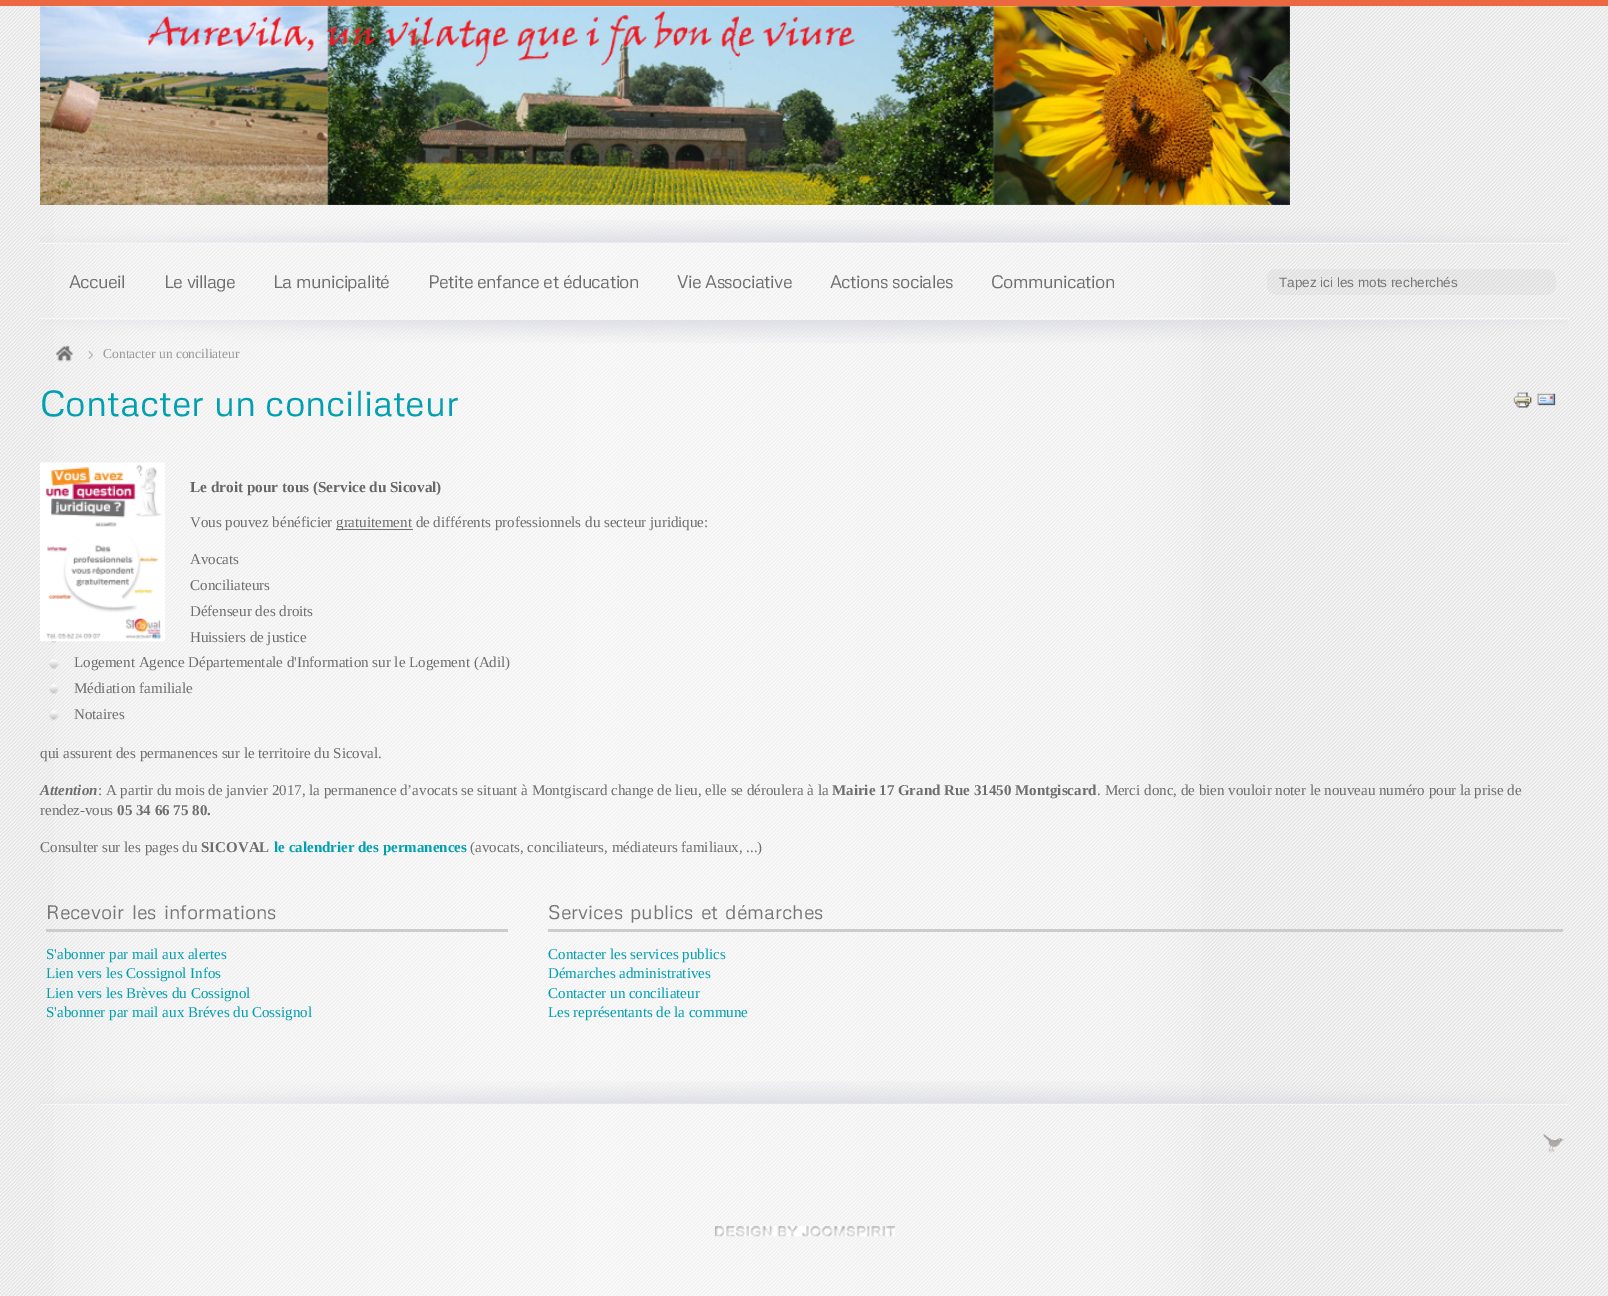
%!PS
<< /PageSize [1608 1296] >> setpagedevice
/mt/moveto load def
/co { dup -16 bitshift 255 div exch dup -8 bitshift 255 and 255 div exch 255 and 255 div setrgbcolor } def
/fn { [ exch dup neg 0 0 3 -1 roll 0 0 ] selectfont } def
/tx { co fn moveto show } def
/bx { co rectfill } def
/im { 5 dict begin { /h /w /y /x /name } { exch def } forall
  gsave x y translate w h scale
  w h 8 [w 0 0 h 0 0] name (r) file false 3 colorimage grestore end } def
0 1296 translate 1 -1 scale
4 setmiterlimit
0 0 1608 1296 16#F7F7F7 bx
(media/1.raw) 0 6 1608 1290 im
(media/2.raw) 54 6 1147 1290 im
0 0 1608 6 16#EB6841 bx
(media/3.raw) 40 220 1528 23 im
40 243 1529 1 16#F6F6F6 bx
(media/4.raw) 40 6 1250 199 im
(media/5.raw) 40 320 1528 23 im
40 318 1529 1 16#F6F6F6 bx
(media/6.raw) 1267 269 289 26 im
(media/7.raw) 40 1081 1527 23 im
(media/8.raw) 56 345 18 17 im
(media/9.raw) 88 351 5 8 im
(media/10.raw) 1513 392 19 16 im
(media/11.raw) 1537 393 19 13 im
(media/13.raw) 50 641 8 2 im
(media/12.raw) 40 462 125 180 im
336 529 77 1 16#6E6E6E bx
(media/14.raw) 49 659 10 10 im
(media/15.raw) 49 684 10 10 im
(media/16.raw) 49 710 10 11 im
46 929 462 3 16#CCCCCC bx
548 929 1015 3 16#CCCCCC bx
40 1104 1529 1 16#F6F6F6 bx
(media/17.raw) 1543 1134 22 19 im
(media/18.raw) 715 1226 180 11 im
/Metrophobic-Regular 18 fn
16#6E6E6E co
69 288 mt -.6 0 (Accueil) ashow
164 288 mt -.6 0 (Le village) ashow
273 288 mt -.6 0 (La municipalité) ashow
428 288 mt -.6 0 (Petite enfance et éducation) ashow
677 288 mt -.6 0 (Vie Associative) ashow
830 288 mt -.6 0 (Actions sociales) ashow
991 288 mt -.6 0 (Communication) ashow
(Tapez ici les mots recherchés) 1279 287 /LiberationSans-Regular 13.5 16#777777 tx
(Contacter un conciliateur) 103 358 /LiberationSerif-Regular 13.5 16#999999 tx
(Contacter un conciliateur) 40 416 /Metrophobic-Regular 36 16#00A0B0 tx
(Le droit pour tous \(Service du Sicoval\)) 190 492 /LiberationSerif-Bold 15.25 16#666666 tx
(Vous pouvez bénéficier) 190 527 /LiberationSerif-Regular 15 16#6E6E6E tx
(gratuitement de différents professionnels du secteur juridique:) 336 527 /LiberationSerif-Regular 15 16#6E6E6E tx
(Avocats) 190 564 /LiberationSerif-Regular 15 16#6E6E6E tx
(Conciliateurs) 190 590 /LiberationSerif-Regular 15 16#6E6E6E tx
(Défenseur des droits) 190 616 /LiberationSerif-Regular 15 16#6E6E6E tx
(Huissiers de justice) 190 642 /LiberationSerif-Regular 15 16#6E6E6E tx
(Logement Agence Départementale d'Information sur le Logement \(Adil\)) 74 667 /LiberationSerif-Regular 15 16#6E6E6E tx
(Médiation familiale) 74 693 /LiberationSerif-Regular 15 16#6E6E6E tx
(Notaires) 74 719 /LiberationSerif-Regular 15 16#6E6E6E tx
(qui assurent des permanences sur le territoire du Sicoval.) 40 758 /LiberationSerif-Regular 15 16#6E6E6E tx
(Attention) 40 795 /LiberationSerif-BoldItalic 15 16#6E6E6E tx
(: A partir du mois de janvier 2017, la permanence d’avocats se situant à Montgiscard change de lieu, elle se déroulera à la) 98 795 /LiberationSerif-Regular 15 16#6E6E6E tx
(Mairie 17 Grand Rue 31450 Montgiscard) 832 795 /LiberationSerif-Bold 15 16#6E6E6E tx
(. Merci donc, de bien vouloir noter le nouveau numéro pour la prise de) 1097 795 /LiberationSerif-Regular 15 16#6E6E6E tx
(rendez-vous) 40 815 /LiberationSerif-Regular 15 16#6E6E6E tx
(05 34 66 75 80.) 117 815 /LiberationSerif-Bold 15 16#6E6E6E tx
(Consulter sur les pages du) 40 852 /LiberationSerif-Regular 15 16#6E6E6E tx
(SICOVAL) 201 852 /LiberationSerif-Bold 15 16#6E6E6E tx
(le calendrier des permanences) 274 852 /LiberationSerif-Bold 15 16#00A0B0 tx
(\(avocats, conciliateurs, médiateurs familiaux, ...\)) 470 852 /LiberationSerif-Regular 15 16#6E6E6E tx
(Recevoir) 46 919 /Metrophobic-Regular 19.5 16#777777 tx
132 919 mt 2 0 32 (les informations) widthshow
(S'abonner par mail aux alertes) 46 959 /LiberationSerif-Regular 15 16#00A0B0 tx
(Lien vers les Cossignol Infos) 46 978 /LiberationSerif-Regular 15 16#00A0B0 tx
(Lien vers les Brèves du Cossignol) 46 998 /LiberationSerif-Regular 15 16#00A0B0 tx
(S'abonner par mail aux Bréves du Cossignol) 46 1017 /LiberationSerif-Regular 15 16#00A0B0 tx
(Services) 548 919 /Metrophobic-Regular 19.5 16#777777 tx
630 919 mt 2 0 32 (publics et démarches) widthshow
(Contacter les services publics) 548 959 /LiberationSerif-Regular 15 16#00A0B0 tx
(Démarches administratives) 548 978 /LiberationSerif-Regular 15 16#00A0B0 tx
(Contacter un conciliateur) 548 998 /LiberationSerif-Regular 15 16#00A0B0 tx
(Les représentants de la commune) 548 1017 /LiberationSerif-Regular 15 16#00A0B0 tx
showpage
